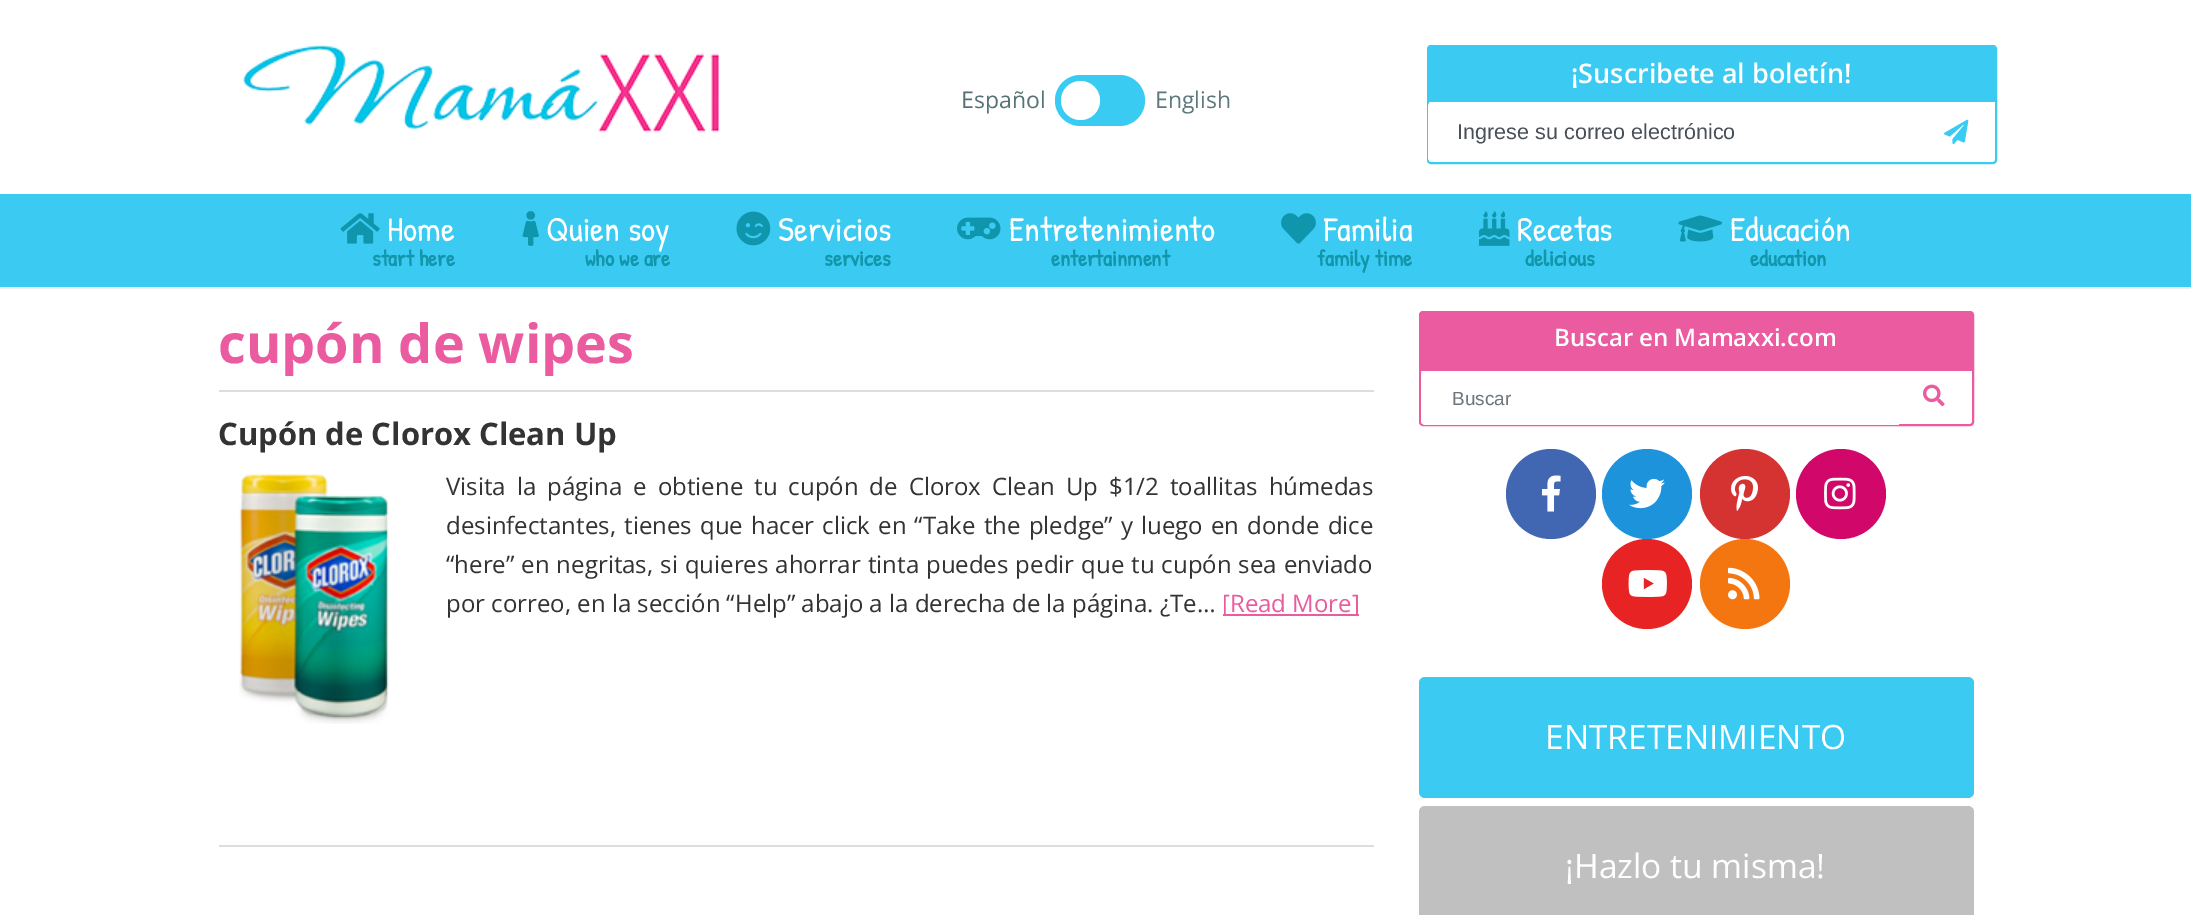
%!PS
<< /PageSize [2191 915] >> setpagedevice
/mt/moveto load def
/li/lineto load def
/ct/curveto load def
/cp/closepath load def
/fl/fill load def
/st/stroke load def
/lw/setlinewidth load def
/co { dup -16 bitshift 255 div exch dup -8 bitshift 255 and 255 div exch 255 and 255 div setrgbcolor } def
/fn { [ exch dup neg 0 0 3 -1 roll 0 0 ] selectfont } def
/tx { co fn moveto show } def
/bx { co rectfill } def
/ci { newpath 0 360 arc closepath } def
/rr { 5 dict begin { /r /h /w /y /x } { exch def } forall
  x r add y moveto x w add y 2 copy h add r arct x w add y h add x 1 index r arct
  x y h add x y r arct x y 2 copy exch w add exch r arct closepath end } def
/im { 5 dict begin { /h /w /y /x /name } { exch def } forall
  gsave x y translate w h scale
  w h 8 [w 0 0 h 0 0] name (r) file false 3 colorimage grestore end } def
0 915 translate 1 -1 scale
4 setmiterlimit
0 0 2191 915 16#FFFFFF bx
(media/1.raw) 243 45 477 88 im
16#3ACBF2 co
1055 75 90 51 25.5 rr fl
16#FFFFFF co
1080.5 100.5 19.5 ci fl
16#3ACBF2 co
2 lw
1428 46 568 117 3 rr st
16#3BCBF2 co
1430 47 mt 1993 47 li 1994 47 1995 48 1995 49 ct 1995 102 li 1428 102 li 1428 49 li 1428 48 1429 47 1430 47 ct cp fl
16#FFFFFF co
1432 102 mt 1922 102 li 1922 162 li 1432 162 li 1430 162 1428 160 1428 158 ct 1428 106 li 1428 104 1430 102 1432 102 ct cp fl
(media/2.raw) 1944 119 25 25 im
0 194 2191 93 16#3BCBF2 bx
0 287 2191 2 16#EEEEEE bx
(media/3.raw) 340 213 40 31 im
(media/4.raw) 522 211 17 35 im
(media/5.raw) 736 211 35 35 im
(media/6.raw) 957 217 44 23 im
(media/7.raw) 1281 213 35 31 im
(media/8.raw) 1479 211 31 35 im
(media/9.raw) 1678 215 44 27 im
219 390 1155 2 16#DDDDDD bx
219 845 1155 2 16#DDDDDD bx
(media/10.raw) 239 473 150 251 im
1223 614 136 2 16#EA5BA0 bx
16#EB5BA0 co
1420 312 553 113 3 rr st
1423 312 mt 1971 312 li 1972 312 1973 313 1973 314 ct 1973 371 li 1421 371 li 1421 314 li 1421 313 1422 312 1423 312 ct cp fl
16#FFFFFF co
1425 371 mt 1899 371 li 1899 425 li 1425 425 li 1423 425 1421 423 1421 421 ct 1421 375 li 1421 373 1423 371 1425 371 ct cp fl
(media/11.raw) 1923 384 22 23 im
16#4267B2 co
1551 494 45 ci fl
(media/12.raw) 1542 475 19 37 im
16#1D93DC co
1647 494 45 ci fl
(media/13.raw) 1629 478 36 31 im
16#D53232 co
1745 494 45 ci fl
(media/14.raw) 1731 475 27 36 im
16#D10869 co
1841 494 45 ci fl
(media/15.raw) 1824 477 32 33 im
16#E82323 co
1647 584 45 ci fl
(media/16.raw) 1628 570 39 27 im
16#F37610 co
1745 584 45 ci fl
(media/17.raw) 1728 567 32 33 im
16#3BCBF2 co
1419 677 555 121 6 rr fl
16#C0C0C0 co
1419 806 555 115 6 rr fl
(Español) 961 108 /OpenSans-Regular 23 16#567277 tx
(English) 1155 108 /OpenSans-Regular 23 16#5E787D tx
(¡Suscribete al boletín!) 1571 83 /OpenSans-SemiBold 27 16#FFFFFF tx
(Ingrese su correo electrónico) 1457 139 /LiberationSans-Regular 21.6 16#495057 tx
(Home) 387 241 /PatrickHand-Regular 34.75 16#FFFFFF tx
(start here) 372 266 /PatrickHand-Bold 22.5 16#1196AC tx
(Quien soy) 546 241 /PatrickHand-Regular 34.75 16#FFFFFF tx
(who we are) 585 266 /PatrickHand-Bold 22.5 16#1196AC tx
(Servicios) 778 241 /PatrickHand-Regular 34.75 16#FFFFFF tx
(services) 824 266 /PatrickHand-Bold 22.5 16#1196AC tx
(Entretenimiento) 1009 241 /PatrickHand-Regular 34.75 16#FFFFFF tx
(entertainment) 1051 266 /PatrickHand-Bold 22.5 16#1196AC tx
(Familia) 1324 241 /PatrickHand-Regular 34.75 16#FFFFFF tx
(family time) 1317 266 /PatrickHand-Bold 22.5 16#1196AC tx
(Recetas) 1517 241 /PatrickHand-Regular 34.75 16#FFFFFF tx
(delicious) 1525 266 /PatrickHand-Bold 22.5 16#1196AC tx
(Educación) 1730 241 /PatrickHand-Regular 34.75 16#FFFFFF tx
(education) 1750 266 /PatrickHand-Bold 22.5 16#1196AC tx
(cupón de wipes) 218 363 /OpenSans-Bold 54 16#EB5BA0 tx
(Cupón de Clorox Clean Up) 218 445 /OpenSans-Bold 31 16#333333 tx
/OpenSans-Regular 24 fn
446 495 mt 4.75 0 32 (Visita la página e obtiene tu cupón de Clorox Clean Up $1/2 toallitas húmedas) widthshow
446 534 mt 2 0 32 (desinfectantes, tienes que hacer click en “Take the pledge” y luego en donde dice) widthshow
446 573 mt .8 0 32 (“here” en negritas, si quieres ahorrar tinta puedes pedir que tu cupón sea enviado) widthshow
(por correo, en la sección “Help” abajo a la derecha de la página. ¿Te…) 446 612 /OpenSans-Regular 24 16#333333 tx
([Read More]) 1222 612 /OpenSans-Regular 24 16#EB5BA0 tx
(Buscar en Mamaxxi.com) 1554 346 /OpenSans-SemiBold 24 16#FFFFFF tx
(Buscar) 1452 405 /LiberationSans-Regular 19 16#6C757D tx
(ENTRETENIMIENTO) 1545 749 /OpenSans-Regular 33.5 16#FFFFFF tx
(¡Hazlo tu misma!) 1565 878 /OpenSans-Regular 33.5 16#FFFFFF tx
showpage
